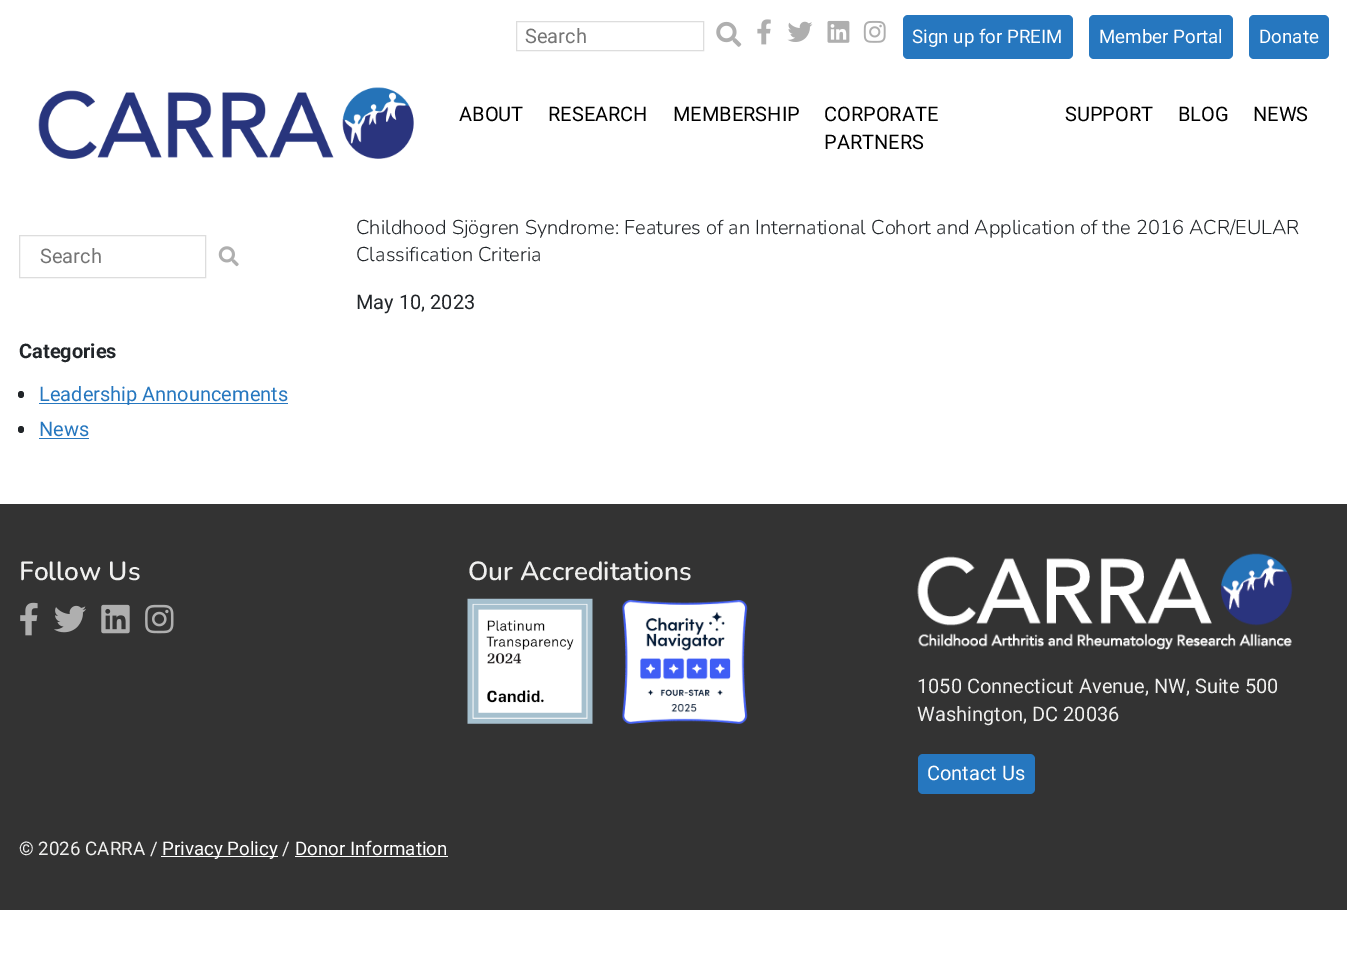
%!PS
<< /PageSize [1347 979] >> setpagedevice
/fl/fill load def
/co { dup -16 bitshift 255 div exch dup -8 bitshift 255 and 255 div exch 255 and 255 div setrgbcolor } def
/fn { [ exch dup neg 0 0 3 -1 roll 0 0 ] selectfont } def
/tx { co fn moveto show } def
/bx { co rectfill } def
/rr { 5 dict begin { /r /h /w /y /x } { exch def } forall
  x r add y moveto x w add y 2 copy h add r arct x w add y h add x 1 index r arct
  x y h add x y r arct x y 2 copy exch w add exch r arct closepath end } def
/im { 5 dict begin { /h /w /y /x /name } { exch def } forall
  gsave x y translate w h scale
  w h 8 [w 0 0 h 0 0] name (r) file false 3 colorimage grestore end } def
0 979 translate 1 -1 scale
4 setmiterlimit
0 0 1347 979 16#FFFFFF bx
16#DDDDDD co
516.5 21.5 187 29 rectstroke
(media/1.raw) 716 21 26 26 im
(media/2.raw) 757 19 14 26 im
(media/3.raw) 787 21 26 21 im
(media/4.raw) 827 20 23 23 im
(media/5.raw) 863 20 23 23 im
16#2677BF co
903 15 170 44 5 rr fl
1089 15 144 44 5 rr fl
1249 15 80 44 5 rr fl
(media/6.raw) 38 87 376 72 im
16#DDDDDD co
19.5 235.5 186 42 rectstroke
(media/7.raw) 218 246 21 21 im
16#212529 co
18 391 6 7 3 rr fl
39 403 249 1 16#2677BF bx
16#212529 co
18 426 6 7 3 rr fl
39 438 50 1 16#2677BF bx
0 504 1347 406 16#333333 bx
(media/8.raw) 20 602 18 34 im
(media/9.raw) 54 605 32 28 im
(media/10.raw) 101 604 29 30 im
(media/11.raw) 145 604 29 30 im
(media/12.raw) 467 598 126 126 im
(media/13.raw) 622 600 126 124 im
(media/14.raw) 917 553 376 97 im
16#2677BF co
918 754 117 40 5 rr fl
161 856 117 1 16#FFFFFF bx
295 856 153 1 16#FFFFFF bx
(Search) 525 43 /Roboto-Regular 20 16#757575 tx
(Sign up for PREIM) 912 43 /Roboto-Regular 18.75 16#FFFFFF tx
(Member Portal) 1099 43 /Roboto-Regular 18.75 16#FFFFFF tx
(Donate) 1259 43 /Roboto-Regular 18.75 16#FFFFFF tx
(ABOUT) 459 121 /Roboto-Regular 20 16#000000 tx
(RESEARCH) 548 121 /Roboto-Regular 20 16#000000 tx
(MEMBERSHIP) 673 121 /Roboto-Regular 20 16#000000 tx
(CORPORATE) 824 121 /Roboto-Regular 20 16#000000 tx
(PARTNERS) 824 149 /Roboto-Regular 20 16#000000 tx
(SUPPORT) 1065 121 /Roboto-Regular 20 16#000000 tx
(BLOG) 1178 121 /Roboto-Regular 20 16#000000 tx
(NEWS) 1253 121 /Roboto-Regular 20 16#000000 tx
(Search) 40 263 /Roboto-Regular 20 16#757575 tx
(Categories) 19 358 /Roboto-Bold 20 16#212529 tx
(Leadership Announcements) 39 401 /Roboto-Regular 20 16#2677BF tx
(News) 39 436 /Roboto-Regular 20 16#2677BF tx
(Childhood Sjögren Syndrome: Features of an International Cohort and Application of the 2016 ACR/EULAR) 356 234 /Nunito-Light 20 16#212529 tx
(Classification Criteria) 356 261 /Nunito-Light 20 16#212529 tx
(May 10, 2023) 356 309 /Roboto-Regular 20 16#212529 tx
(Follow Us) 19 580 /Nunito-SemiBold 26.25 16#F0F0EF tx
(Our Accreditations) 468 580 /Nunito-SemiBold 26.25 16#F0F0EF tx
(1050 Connecticut Avenue, NW, Suite 500) 917 693 /Roboto-Regular 20 16#F0F0EF tx
(Washington, DC 20036) 917 721 /Roboto-Regular 20 16#F0F0EF tx
(Contact Us) 927 780 /Roboto-Regular 20 16#FFFFFF tx
(© 2026 CARRA /) 19 855 /Roboto-Regular 18.75 16#F0F0EF tx
(Privacy Policy) 162 855 /Roboto-Regular 18.75 16#FFFFFF tx
(/) 282 855 /Roboto-Regular 18.75 16#F0F0EF tx
(Donor Information) 295 855 /Roboto-Regular 18.75 16#FFFFFF tx
showpage
